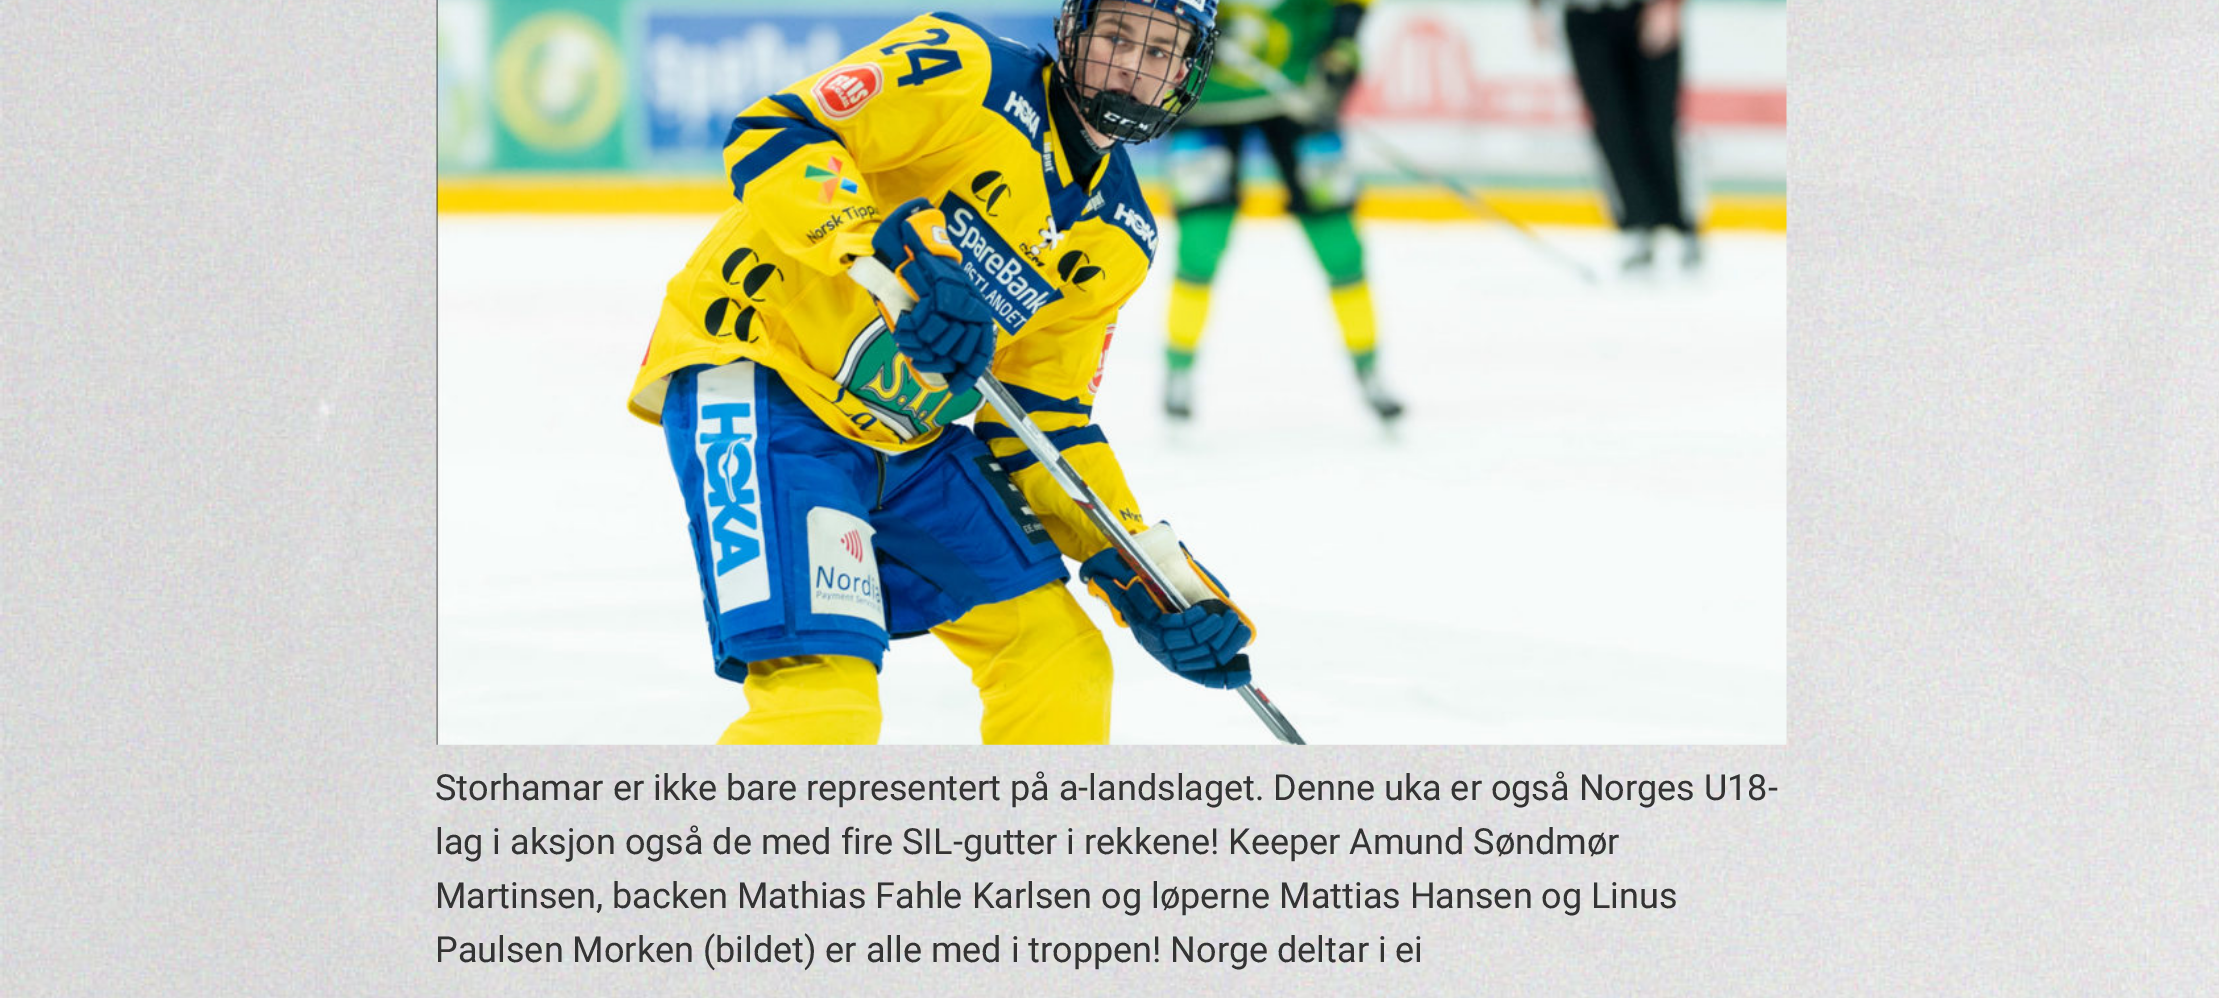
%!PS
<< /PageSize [2219 998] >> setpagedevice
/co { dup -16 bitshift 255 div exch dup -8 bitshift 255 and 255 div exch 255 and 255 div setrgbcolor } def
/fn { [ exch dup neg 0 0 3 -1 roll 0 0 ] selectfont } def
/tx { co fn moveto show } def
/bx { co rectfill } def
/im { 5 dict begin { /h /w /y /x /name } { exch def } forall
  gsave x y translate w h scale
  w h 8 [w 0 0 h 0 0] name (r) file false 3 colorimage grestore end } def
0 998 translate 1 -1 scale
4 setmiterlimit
0 0 2219 998 16#FFFFFF bx
(media/1.raw) 0 0 2219 998 im
(media/2.raw) 436 0 1351 745 im
(Storhamar er ikke bare representert på a-landslaget. Denne uka er også Norges U18-) 435 800 /Roboto-Regular 36 16#333333 tx
(lag i aksjon også de med fire SIL-gutter i rekkene! Keeper Amund Søndmør) 435 854 /Roboto-Regular 36 16#333333 tx
(Martinsen, backen Mathias Fahle Karlsen og løperne Mattias Hansen og Linus) 435 908 /Roboto-Regular 36 16#333333 tx
(Paulsen Morken \(bildet\) er alle med i troppen! Norge deltar i ei) 435 962 /Roboto-Regular 36 16#333333 tx
showpage
